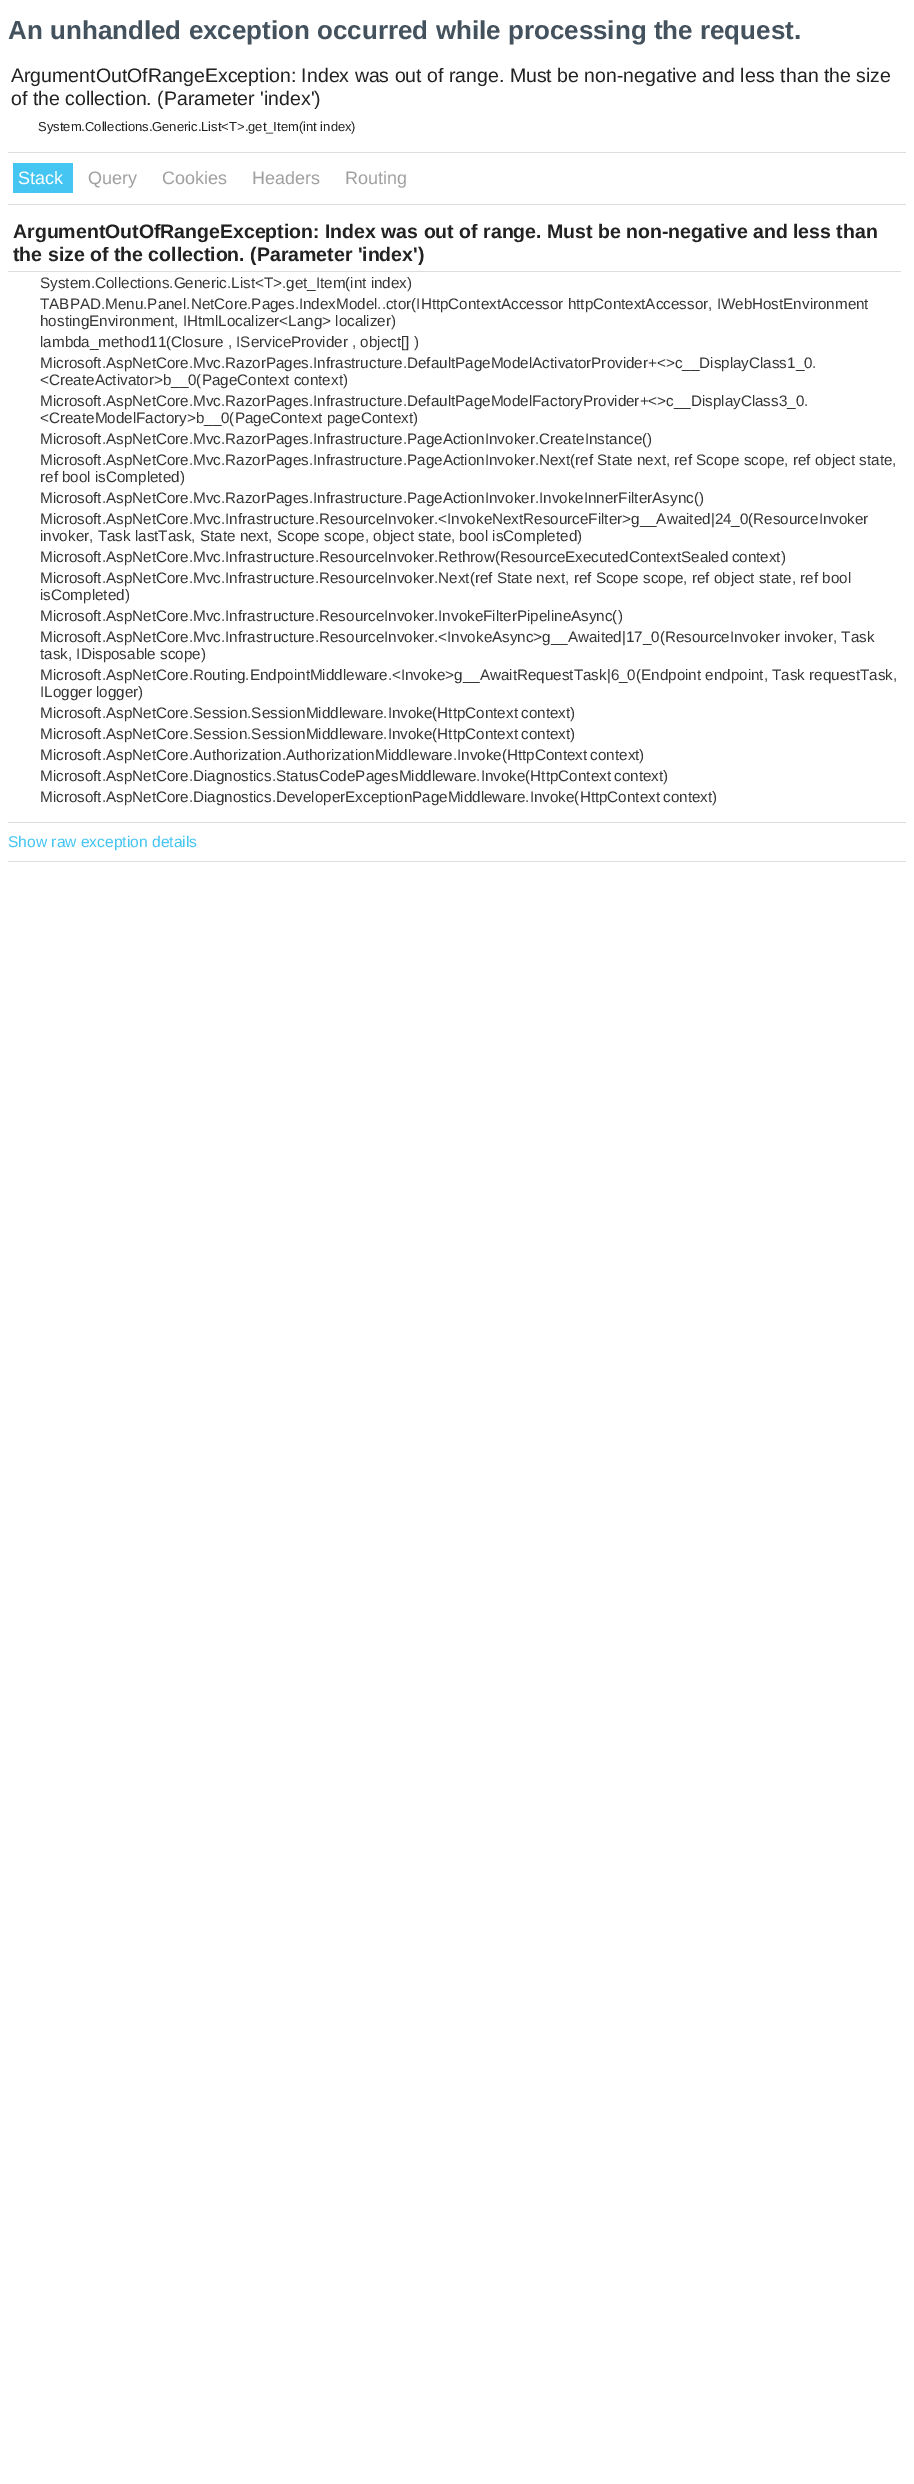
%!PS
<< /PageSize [914 2484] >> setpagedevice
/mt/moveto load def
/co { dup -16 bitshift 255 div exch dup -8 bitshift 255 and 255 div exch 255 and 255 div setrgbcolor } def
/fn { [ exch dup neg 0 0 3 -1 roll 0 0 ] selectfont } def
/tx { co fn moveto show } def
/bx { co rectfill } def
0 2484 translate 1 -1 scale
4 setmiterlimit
0 0 914 2484 16#FFFFFF bx
8 152 898 1 16#DDDDDD bx
8 204 898 1 16#DDDDDD bx
13 163 60 30 16#44C5F2 bx
8 271 893 1 16#DDDDDD bx
8 822 898 1 16#DDDDDD bx
8 861 898 1 16#DDDDDD bx
(An unhandled exception occurred while processing the request.) 8 39 /LiberationSans-Bold 26 16#44525E tx
(ArgumentOutOfRangeException: Index was out of range. Must be non-negative and less than the size) 11 82 /LiberationSans-Regular 19.5 16#222222 tx
(of the collection. \(Parameter 'index'\)) 11 105 /LiberationSans-Regular 19.5 16#222222 tx
(System.Collections.Generic.List<T>.get_Item\(int index\)) 38 131 /LiberationSans-Regular 13 16#222222 tx
(Stack) 18 184 /LiberationSans-Regular 18 16#FFFFFF tx
(Query) 88 184 /LiberationSans-Regular 18 16#A0A0A0 tx
(Cookies) 162 184 /LiberationSans-Regular 18 16#A0A0A0 tx
(Headers) 252 184 /LiberationSans-Regular 18 16#A0A0A0 tx
(Routing) 345 184 /LiberationSans-Regular 18 16#A0A0A0 tx
(ArgumentOutOfRangeException: Index was out of range. Must be non-negative and less than) 13 238 /LiberationSans-Bold 19.5 16#222222 tx
(the size of the collection. \(Parameter 'index'\)) 13 261 /LiberationSans-Bold 19.5 16#222222 tx
(System.Collections.Generic.List<T>.get_Item\(int index\)) 40 288 /LiberationSans-Regular 15.22 16#363636 tx
(TABPAD.Menu.Panel.NetCore.Pages.IndexModel..ctor\(IHttpContextAccessor httpContextAccessor, IWebHostEnvironment) 40 309 /LiberationSans-Regular 15.22 16#363636 tx
(hostingEnvironment, IHtmlLocalizer<Lang> localizer\)) 40 326 /LiberationSans-Regular 15.22 16#363636 tx
(lambda_method11\(Closure , IServiceProvider , object[] \)) 40 347 /LiberationSans-Regular 15.22 16#363636 tx
(Microsoft.AspNetCore.Mvc.RazorPages.Infrastructure.DefaultPageModelActivatorProvider+<>c__DisplayClass1_0.) 40 368 /LiberationSans-Regular 15.22 16#363636 tx
(<CreateActivator>b__0\(PageContext context\)) 40 385 /LiberationSans-Regular 15.22 16#363636 tx
(Microsoft.AspNetCore.Mvc.RazorPages.Infrastructure.DefaultPageModelFactoryProvider+<>c__DisplayClass3_0.) 40 406 /LiberationSans-Regular 15.22 16#363636 tx
(<CreateModelFactory>b__0\(PageContext pageContext\)) 40 423 /LiberationSans-Regular 15.22 16#363636 tx
(Microsoft.AspNetCore.Mvc.RazorPages.Infrastructure.PageActionInvoker.CreateInstance\(\)) 40 444 /LiberationSans-Regular 15.22 16#363636 tx
(Microsoft.AspNetCore.Mvc.RazorPages.Infrastructure.PageActionInvoker.Next\(ref State next, ref Scope scope, ref object state,) 40 465 /LiberationSans-Regular 15.22 16#363636 tx
(ref bool isCompleted\)) 40 482 /LiberationSans-Regular 15.22 16#363636 tx
(Microsoft.AspNetCore.Mvc.RazorPages.Infrastructure.PageActionInvoker.InvokeInnerFilterAsync\(\)) 40 503 /LiberationSans-Regular 15.22 16#363636 tx
(Microsoft.AspNetCore.Mvc.Infrastructure.ResourceInvoker.<InvokeNextResourceFilter>g__Awaited|24_0\(ResourceInvoker) 40 524 /LiberationSans-Regular 15.22 16#363636 tx
(invoker, Task lastTask, State next, Scope scope, object state, bool isCompleted\)) 40 541 /LiberationSans-Regular 15.22 16#363636 tx
40 562 mt -1 0 32 (Microsoft.AspNetCore.Mvc.Infrastructure.ResourceInvoker.Rethrow\(ResourceExecutedContextSealed context\)) widthshow
(Microsoft.AspNetCore.Mvc.Infrastructure.ResourceInvoker.Next\(ref State next, ref Scope scope, ref object state, ref bool) 40 583 /LiberationSans-Regular 15.22 16#363636 tx
(isCompleted\)) 40 600 /LiberationSans-Regular 15.22 16#363636 tx
(Microsoft.AspNetCore.Mvc.Infrastructure.ResourceInvoker.InvokeFilterPipelineAsync\(\)) 40 621 /LiberationSans-Regular 15.22 16#363636 tx
(Microsoft.AspNetCore.Mvc.Infrastructure.ResourceInvoker.<InvokeAsync>g__Awaited|17_0\(ResourceInvoker invoker, Task) 40 642 /LiberationSans-Regular 15.22 16#363636 tx
(task, IDisposable scope\)) 40 659 /LiberationSans-Regular 15.22 16#363636 tx
(Microsoft.AspNetCore.Routing.EndpointMiddleware.<Invoke>g__AwaitRequestTask|6_0\(Endpoint endpoint, Task requestTask,) 40 680 /LiberationSans-Regular 15.22 16#363636 tx
(ILogger logger\)) 40 697 /LiberationSans-Regular 15.22 16#363636 tx
40 718 mt -1 0 32 (Microsoft.AspNetCore.Session.SessionMiddleware.Invoke\(HttpContext context\)) widthshow
40 739 mt -1 0 32 (Microsoft.AspNetCore.Session.SessionMiddleware.Invoke\(HttpContext context\)) widthshow
40 760 mt -1 0 32 (Microsoft.AspNetCore.Authorization.AuthorizationMiddleware.Invoke\(HttpContext context\)) widthshow
40 781 mt -1 0 32 (Microsoft.AspNetCore.Diagnostics.StatusCodePagesMiddleware.Invoke\(HttpContext context\)) widthshow
40 802 mt -1 0 32 (Microsoft.AspNetCore.Diagnostics.DeveloperExceptionPageMiddleware.Invoke\(HttpContext context\)) widthshow
(Show raw exception details) 8 847 /LiberationSans-Regular 15.6 16#44C5F2 tx
showpage
